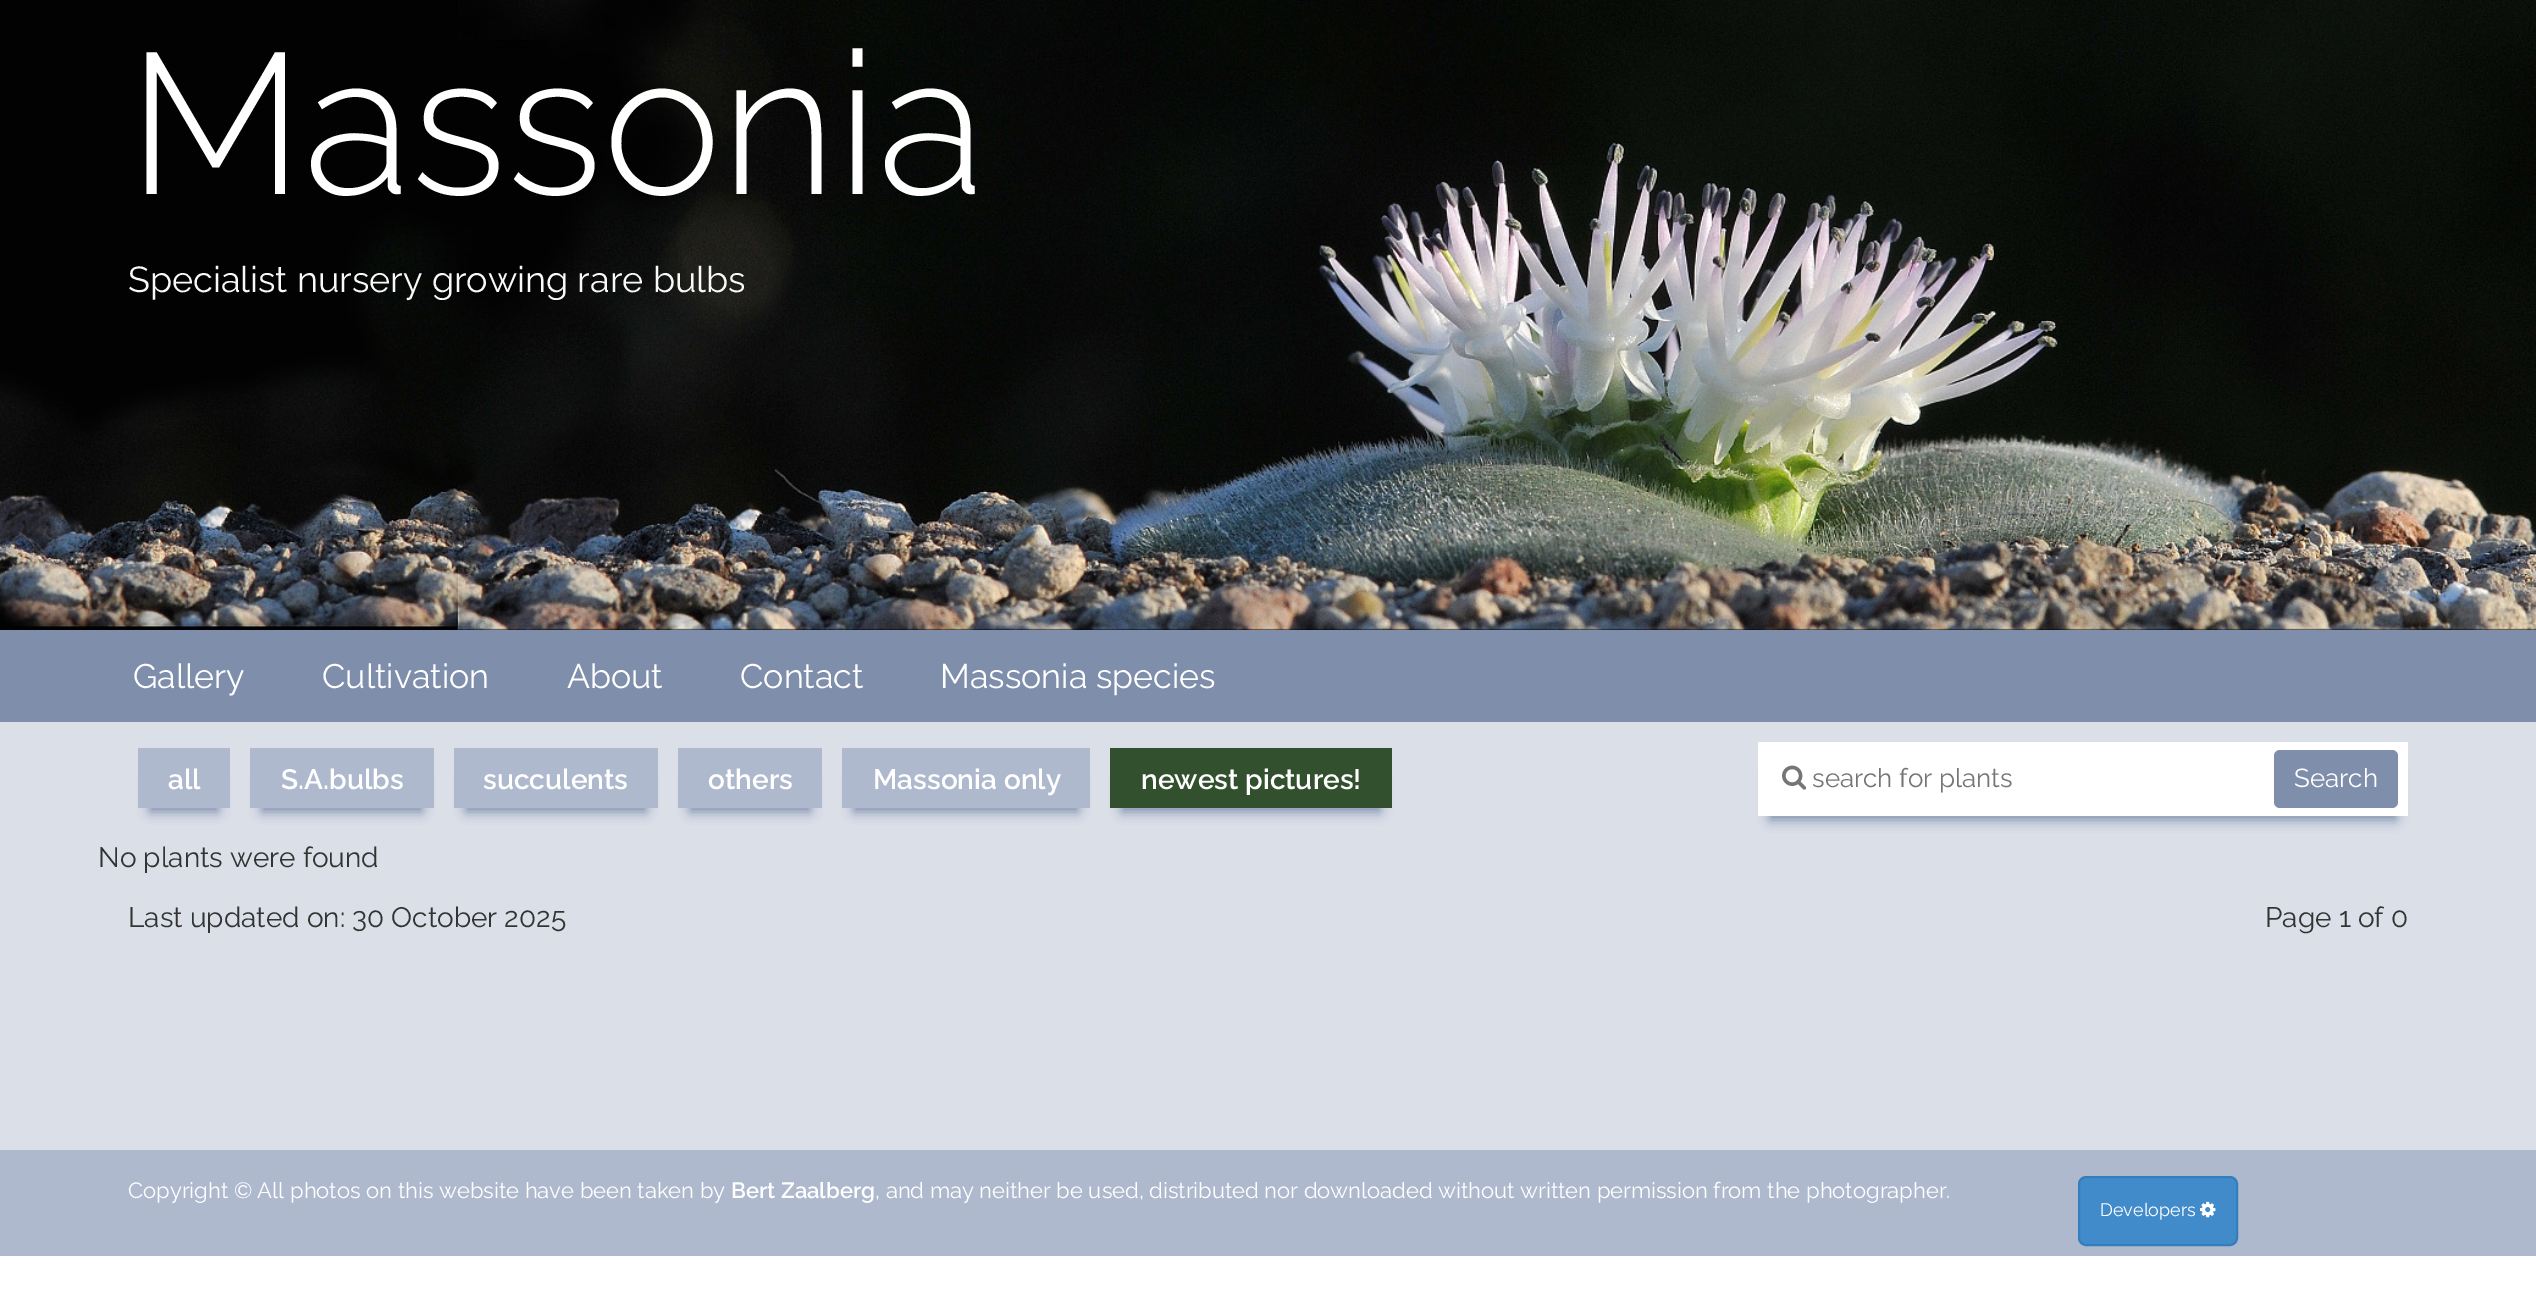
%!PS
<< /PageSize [2536 1298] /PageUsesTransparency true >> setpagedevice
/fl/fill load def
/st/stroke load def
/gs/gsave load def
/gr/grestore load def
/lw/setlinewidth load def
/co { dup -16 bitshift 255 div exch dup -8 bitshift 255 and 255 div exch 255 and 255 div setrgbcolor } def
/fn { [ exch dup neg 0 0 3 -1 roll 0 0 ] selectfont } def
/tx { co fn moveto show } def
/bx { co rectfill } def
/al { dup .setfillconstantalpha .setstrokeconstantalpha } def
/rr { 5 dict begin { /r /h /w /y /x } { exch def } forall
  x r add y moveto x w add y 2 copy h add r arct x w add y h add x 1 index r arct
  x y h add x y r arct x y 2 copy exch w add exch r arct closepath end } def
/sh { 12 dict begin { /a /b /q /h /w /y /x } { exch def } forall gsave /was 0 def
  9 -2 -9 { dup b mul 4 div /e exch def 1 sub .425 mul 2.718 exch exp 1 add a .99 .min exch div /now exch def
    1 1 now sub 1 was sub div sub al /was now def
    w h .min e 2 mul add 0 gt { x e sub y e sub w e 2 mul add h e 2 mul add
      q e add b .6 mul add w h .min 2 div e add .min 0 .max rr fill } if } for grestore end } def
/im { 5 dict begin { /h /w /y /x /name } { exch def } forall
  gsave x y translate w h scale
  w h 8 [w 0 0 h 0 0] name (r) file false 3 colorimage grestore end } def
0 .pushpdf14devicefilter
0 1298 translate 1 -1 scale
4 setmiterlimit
0 0 2536 1298 16#FFFFFF bx
(media/1.raw) 0 0 2536 630 im
0 630 2536 92 16#7E8EAB bx
0 722 2536 428 16#DADFE8 bx
16#7E8EAB co
150 776 68 36 0 6 1 sh
138 748 92 60 16#AEB9CD bx
16#7E8EAB co
262 776 160 36 0 6 1 sh
250 748 184 60 16#AEB9CD bx
16#7E8EAB co
466 776 180 36 0 6 1 sh
454 748 204 60 16#AEB9CD bx
16#7E8EAB co
690 776 120 36 0 6 1 sh
678 748 144 60 16#AEB9CD bx
16#7E8EAB co
854 776 224 36 0 6 1 sh
842 748 248 60 16#AEB9CD bx
16#7E8EAB co
1122 776 258 36 0 6 1 sh
1110 748 282 60 16#33502E bx
16#7E8EAB co
1770 770 626 50 0 6 1 sh
1758 742 650 74 16#FFFFFF bx
(media/2.raw) 1782 765 25 25 im
16#7E8EAB co
2274 750 124 58 6 rr fl
0 1150 2536 106 16#AEB9CD bx
16#428BCA co
2079 1177 158 68 7 rr gs fl gr
16#357EBD co
2 lw
st
(media/3.raw) 2200 1201 16 17 im
(Massonia) 128 194 /Raleway-Light 200 16#FFFFFF tx
(Specialist nursery growing rare bulbs) 128 292 /Raleway-Regular 36 16#F9F9F9 tx
(Gallery) 133 688 /Raleway-Regular 34 16#FFFFFF tx
(Cultivation) 322 688 /Raleway-Regular 34 16#FFFFFF tx
(About) 567 688 /Raleway-Regular 34 16#FFFFFF tx
(Contact) 740 688 /Raleway-Regular 34 16#FFFFFF tx
(Massonia species) 940 688 /Raleway-Regular 34 16#FFFFFF tx
(all) 168 789 /Raleway-SemiBold 28 16#FFFFFF tx
(S.A.bulbs) 281 789 /Raleway-SemiBold 28 16#FFFFFF tx
(succulents) 483 789 /Raleway-SemiBold 28 16#FFFFFF tx
(others) 708 789 /Raleway-SemiBold 28 16#FFFFFF tx
(Massonia only) 873 789 /Raleway-SemiBold 28 16#FFFFFF tx
(newest pictures!) 1141 789 /Raleway-SemiBold 28 16#FFFFFF tx
(search for plants) 1812 787 /Raleway-Regular 26 16#757575 tx
(Search) 2294 787 /Raleway-Regular 26 16#FFFFFF tx
(No plants were found) 98 867 /Raleway-Regular 28 16#333333 tx
(Last updated on: 30 October 2025) 128 927 /Raleway-Regular 28 16#333333 tx
(Page 1 of 0) 2265 927 /Raleway-Regular 28 16#333333 tx
(Copyright © All photos on this website have been taken by) 128 1198 /Raleway-Regular 22 16#FFFFFF tx
(Bert Zaalberg) 731 1198 /Raleway-SemiBold 22 16#FFFFFF tx
(, and may neither be used, distributed nor downloaded without written permission from the photographer.) 875 1198 /Raleway-Regular 22 16#FFFFFF tx
(Developers) 2100 1216 /Raleway-Regular 18 16#FFFFFF tx
.poppdf14devicefilter showpage
